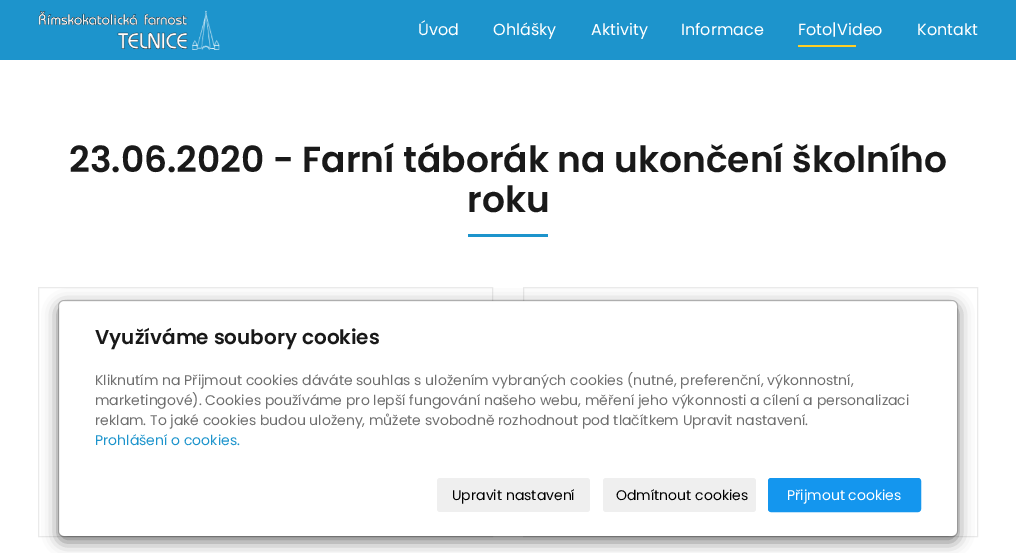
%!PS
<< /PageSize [1016 553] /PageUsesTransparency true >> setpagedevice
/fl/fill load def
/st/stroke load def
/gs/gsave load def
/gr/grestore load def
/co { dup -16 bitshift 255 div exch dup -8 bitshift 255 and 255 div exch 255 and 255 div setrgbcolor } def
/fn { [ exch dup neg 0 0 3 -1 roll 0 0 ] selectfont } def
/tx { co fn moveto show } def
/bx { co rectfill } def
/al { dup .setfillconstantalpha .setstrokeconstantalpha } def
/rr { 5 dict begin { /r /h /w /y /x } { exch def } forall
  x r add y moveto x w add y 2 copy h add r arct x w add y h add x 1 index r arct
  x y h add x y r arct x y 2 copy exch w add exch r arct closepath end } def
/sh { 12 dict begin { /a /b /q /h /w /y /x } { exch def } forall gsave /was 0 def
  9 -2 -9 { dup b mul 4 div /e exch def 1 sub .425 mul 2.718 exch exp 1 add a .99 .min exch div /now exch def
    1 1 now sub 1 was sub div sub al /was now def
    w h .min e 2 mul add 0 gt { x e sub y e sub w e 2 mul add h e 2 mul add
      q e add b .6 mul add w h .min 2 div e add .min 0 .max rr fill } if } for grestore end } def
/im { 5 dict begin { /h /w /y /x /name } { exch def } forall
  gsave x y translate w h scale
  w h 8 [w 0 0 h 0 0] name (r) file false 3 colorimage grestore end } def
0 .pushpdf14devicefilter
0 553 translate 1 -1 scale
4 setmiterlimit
0 0 1016 553 16#FFFFFF bx
0 0 1016 60 16#1D94CC bx
(media/1.raw) 38 10 182 40 im
798 45 58 2 16#FFCE25 bx
468 234 80 3 16#1D94CC bx
16#EAEAEA co
38.5 287.5 454 249 rectstroke
523.5 287.5 454 249 rectstroke
16#000000 co
58 305 900 237 6 7.5 .5 sh
16#FFFFFF co
59 301 898 235 5 rr fl
0.2 al
16#000000 co
58.5 300.5 899 236 5.5 rr st
1 al
16#EFEFEF co
437 478 153 34 3 rr fl
603 478 153 34 3 rr fl
16#1496EE co
768.5 478.5 152 33 2.5 rr gs fl gr
st
(Úvod) 418 35 /Poppins-Regular 16 16#FFFFFF tx
(Ohlášky) 493 35 /Poppins-Regular 16 16#FFFFFF tx
(Aktivity) 591 35 /Poppins-Regular 16 16#FFFFFF tx
(Informace) 681 35 /Poppins-Regular 16 16#FFFFFF tx
(Foto|Video) 798 35 /Poppins-Regular 16 16#FFFFFF tx
(Kontakt) 917 35 /Poppins-Regular 16 16#FFFFFF tx
(23.06.2020 - Farní táborák na ukončení školního) 69 172 /Poppins-SemiBold 36 16#191919 tx
(roku) 467 212 /Poppins-SemiBold 36 16#191919 tx
(Využíváme soubory cookies) 95 344 /Poppins-SemiBold 20 16#191919 tx
(Kliknutím na Přijmout cookies dáváte souhlas s uložením vybraných cookies \(nutné, preferenční, výkonnostní,) 95 385 /Poppins-Regular 14 16#6F6F6F tx
(marketingové\). Cookies používáme pro lepší fungování našeho webu, měření jeho výkonnosti a cílení a personalizaci) 95 405 /Poppins-Regular 14 16#6F6F6F tx
(reklam. To jaké cookies budou uloženy, můžete svobodně rozhodnout pod tlačítkem Upravit nastavení.) 95 425 /Poppins-Regular 14 16#6F6F6F tx
(Prohlášení o cookies.) 95 445 /Poppins-Regular 14 16#1D94CC tx
(Upravit nastavení) 452 500 /Poppins-Regular 14 16#000000 tx
(Odmítnout cookies) 616 500 /Poppins-Regular 14 16#000000 tx
(Přijmout cookies) 787 500 /Poppins-Regular 14 16#FFFFFF tx
.poppdf14devicefilter showpage
